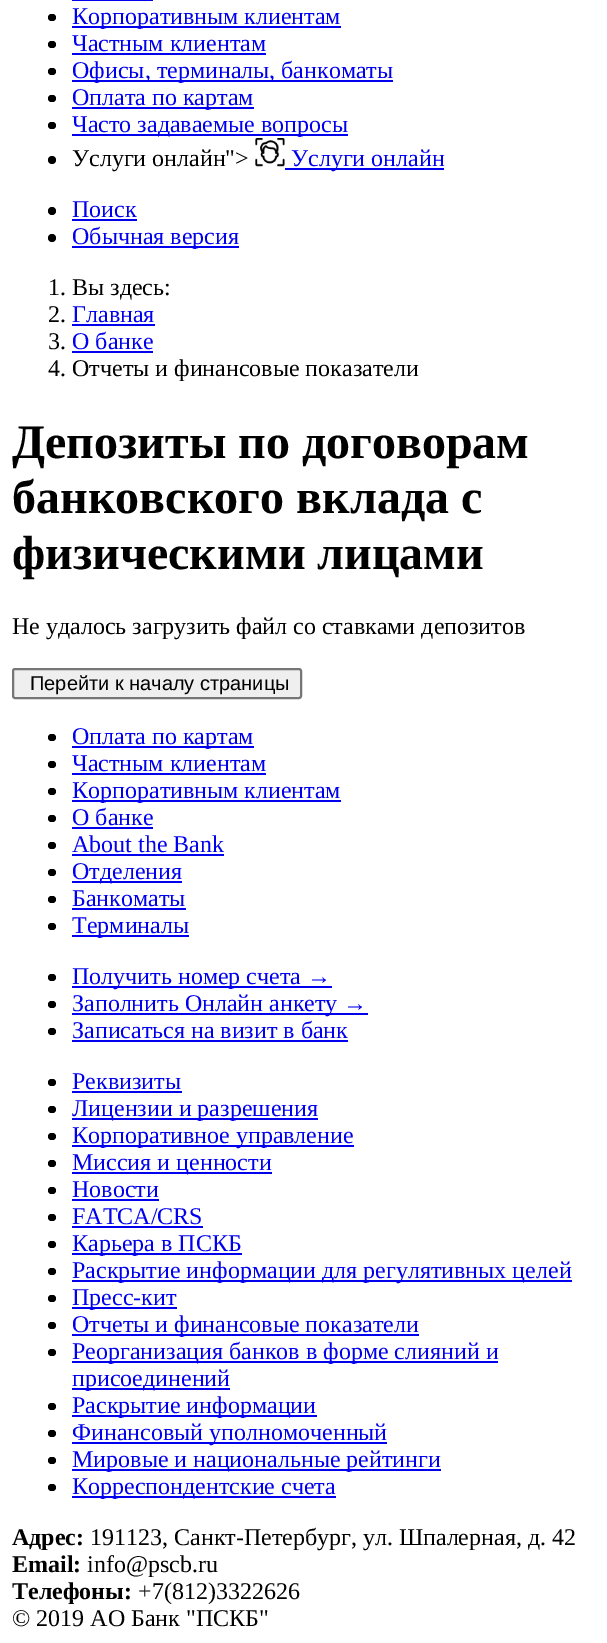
%!PS
<< /PageSize [607 1643] >> setpagedevice
/fl/fill load def
/st/stroke load def
/gs/gsave load def
/gr/grestore load def
/lw/setlinewidth load def
/co { dup -16 bitshift 255 div exch dup -8 bitshift 255 and 255 div exch 255 and 255 div setrgbcolor } def
/fn { [ exch dup neg 0 0 3 -1 roll 0 0 ] selectfont } def
/tx { co fn moveto show } def
/bx { co rectfill } def
/ci { newpath 0 360 arc closepath } def
/rr { 5 dict begin { /r /h /w /y /x } { exch def } forall
  x r add y moveto x w add y 2 copy h add r arct x w add y h add x 1 index r arct
  x y h add x y r arct x y 2 copy exch w add exch r arct closepath end } def
/im { 5 dict begin { /h /w /y /x /name } { exch def } forall
  gsave x y translate w h scale
  w h 8 [w 0 0 h 0 0] name (r) file false 3 colorimage grestore end } def
0 1643 translate 1 -1 scale
4 setmiterlimit
0 0 607 1643 16#FFFFFF bx
72 0 81 1 16#0000EE bx
16#000000 co
48 14 8 7 3.5 rr fl
72 26 269 2 16#0000EE bx
16#000000 co
48 41 8 7 3.5 rr fl
72 53 194 2 16#0000EE bx
16#000000 co
48 68 8 7 3.5 rr fl
72 80 321 2 16#0000EE bx
16#000000 co
48 95 8 7 3.5 rr fl
72 107 182 2 16#0000EE bx
16#000000 co
48 122 8 7 3.5 rr fl
72 134 276 2 16#0000EE bx
16#000000 co
52 160 4 ci fl
(media/1.raw) 255 138 30 29 im
285 168 159 2 16#0000EE bx
16#000000 co
52 211 4 ci fl
72 219 65 2 16#0000EE bx
16#000000 co
52 238 4 ci fl
72 246 167 2 16#0000EE bx
72 324 83 2 16#0000EE bx
72 351 81 2 16#0000EE bx
16#EFEFEF co
13 669 288 29 2 rr gs fl gr
16#767676 co
2 lw
st
16#000000 co
48 734 8 7 3.5 rr fl
72 746 182 2 16#0000EE bx
16#000000 co
48 761 8 7 3.5 rr fl
72 773 194 2 16#0000EE bx
16#000000 co
48 788 8 7 3.5 rr fl
72 800 269 2 16#0000EE bx
16#000000 co
48 815 8 7 3.5 rr fl
72 827 81 2 16#0000EE bx
16#000000 co
48 842 8 7 3.5 rr fl
72 854 152 2 16#0000EE bx
16#000000 co
48 869 8 7 3.5 rr fl
72 881 110 2 16#0000EE bx
16#000000 co
48 896 8 7 3.5 rr fl
72 908 114 2 16#0000EE bx
16#000000 co
48 923 8 7 3.5 rr fl
72 935 117 2 16#0000EE bx
16#000000 co
48 974 8 7 3.5 rr fl
72 986 260 2 16#0000EE bx
16#000000 co
48 1001 8 7 3.5 rr fl
72 1013 296 2 16#0000EE bx
16#000000 co
48 1028 8 7 3.5 rr fl
72 1040 276 2 16#0000EE bx
16#000000 co
48 1079 8 7 3.5 rr fl
72 1091 110 2 16#0000EE bx
16#000000 co
48 1106 8 7 3.5 rr fl
72 1118 246 2 16#0000EE bx
16#000000 co
48 1133 8 7 3.5 rr fl
72 1145 282 2 16#0000EE bx
16#000000 co
48 1160 8 7 3.5 rr fl
72 1172 200 2 16#0000EE bx
16#000000 co
48 1187 8 7 3.5 rr fl
72 1199 87 2 16#0000EE bx
16#000000 co
48 1214 8 7 3.5 rr fl
72 1226 131 2 16#0000EE bx
16#000000 co
48 1241 8 7 3.5 rr fl
72 1253 170 2 16#0000EE bx
16#000000 co
48 1268 8 7 3.5 rr fl
72 1280 500 2 16#0000EE bx
16#000000 co
48 1295 8 7 3.5 rr fl
72 1307 105 2 16#0000EE bx
16#000000 co
48 1322 8 7 3.5 rr fl
72 1334 347 2 16#0000EE bx
16#000000 co
48 1349 8 7 3.5 rr fl
72 1361 426 2 16#0000EE bx
72 1388 158 2 16#0000EE bx
16#000000 co
48 1403 8 7 3.5 rr fl
72 1415 245 2 16#0000EE bx
16#000000 co
48 1430 8 7 3.5 rr fl
72 1442 315 2 16#0000EE bx
16#000000 co
48 1457 8 7 3.5 rr fl
72 1469 369 2 16#0000EE bx
16#000000 co
48 1484 8 7 3.5 rr fl
72 1496 264 2 16#0000EE bx
(Корпоративным клиентам) 72 24 /LiberationSerif-Regular 24 16#0000EE tx
(Частным клиентам) 72 51 /LiberationSerif-Regular 24 16#0000EE tx
(Офисы, терминалы, банкоматы) 72 78 /LiberationSerif-Regular 24 16#0000EE tx
(Оплата по картам) 72 105 /LiberationSerif-Regular 24 16#0000EE tx
(Часто задаваемые вопросы) 72 132 /LiberationSerif-Regular 24 16#0000EE tx
(Услуги онлайн">) 72 166 /LiberationSerif-Regular 24 16#000000 tx
(Услуги онлайн) 291 166 /LiberationSerif-Regular 24 16#0000EE tx
(Поиск) 72 217 /LiberationSerif-Regular 24 16#0000EE tx
(Обычная версия) 72 244 /LiberationSerif-Regular 24 16#0000EE tx
(1. Вы здесь:) 48 295 /LiberationSerif-Regular 24 16#000000 tx
(2.) 48 322 /LiberationSerif-Regular 24 16#000000 tx
(Главная) 72 322 /LiberationSerif-Regular 24 16#0000EE tx
(3.) 48 349 /LiberationSerif-Regular 24 16#000000 tx
(О банке) 72 349 /LiberationSerif-Regular 24 16#0000EE tx
(4. Отчеты и финансовые показатели) 48 376 /LiberationSerif-Regular 24 16#000000 tx
(Депозиты по договорам) 12 458 /LiberationSerif-Bold 48 16#000000 tx
(банковского вклада с) 12 513 /LiberationSerif-Bold 48 16#000000 tx
(физическими лицами) 12 569 /LiberationSerif-Bold 48 16#000000 tx
(Не удалось загрузить файл со ставками депозитов) 12 634 /LiberationSerif-Regular 24 16#000000 tx
(Перейти к началу страницы) 30 690 /LiberationSans-Regular 20 16#000000 tx
(Оплата по картам) 72 744 /LiberationSerif-Regular 24 16#0000EE tx
(Частным клиентам) 72 771 /LiberationSerif-Regular 24 16#0000EE tx
(Корпоративным клиентам) 72 798 /LiberationSerif-Regular 24 16#0000EE tx
(О банке) 72 825 /LiberationSerif-Regular 24 16#0000EE tx
(About the Bank) 72 852 /LiberationSerif-Regular 24 16#0000EE tx
(Отделения) 72 879 /LiberationSerif-Regular 24 16#0000EE tx
(Банкоматы) 72 906 /LiberationSerif-Regular 24 16#0000EE tx
(Терминалы) 72 933 /LiberationSerif-Regular 24 16#0000EE tx
(Получить номер счета →) 72 984 /LiberationSerif-Regular 24 16#0000EE tx
(Заполнить Онлайн анкету →) 72 1011 /LiberationSerif-Regular 24 16#0000EE tx
(Записаться на визит в банк) 72 1038 /LiberationSerif-Regular 24 16#0000EE tx
(Реквизиты) 72 1089 /LiberationSerif-Regular 24 16#0000EE tx
(Лицензии и разрешения) 72 1116 /LiberationSerif-Regular 24 16#0000EE tx
(Корпоративное управление) 72 1143 /LiberationSerif-Regular 24 16#0000EE tx
(Миссия и ценности) 72 1170 /LiberationSerif-Regular 24 16#0000EE tx
(Новости) 72 1197 /LiberationSerif-Regular 24 16#0000EE tx
(FATCA/CRS) 72 1224 /LiberationSerif-Regular 24 16#0000EE tx
(Карьера в ПСКБ) 72 1251 /LiberationSerif-Regular 24 16#0000EE tx
(Раскрытие информации для регулятивных целей) 72 1278 /LiberationSerif-Regular 24 16#0000EE tx
(Пресс-кит) 72 1305 /LiberationSerif-Regular 24 16#0000EE tx
(Отчеты и финансовые показатели) 72 1332 /LiberationSerif-Regular 24 16#0000EE tx
(Реорганизация банков в форме слияний и) 72 1359 /LiberationSerif-Regular 24 16#0000EE tx
(присоединений) 72 1386 /LiberationSerif-Regular 24 16#0000EE tx
(Раскрытие информации) 72 1413 /LiberationSerif-Regular 24 16#0000EE tx
(Финансовый уполномоченный) 72 1440 /LiberationSerif-Regular 24 16#0000EE tx
(Мировые и национальные рейтинги) 72 1467 /LiberationSerif-Regular 24 16#0000EE tx
(Корреспондентские счета) 72 1494 /LiberationSerif-Regular 24 16#0000EE tx
(Адрес:) 12 1545 /LiberationSerif-Bold 24 16#000000 tx
(191123, Санкт-Петербург, ул. Шпалерная, д. 42) 90 1545 /LiberationSerif-Regular 24 16#000000 tx
(Email:) 12 1572 /LiberationSerif-Bold 24 16#000000 tx
(info@pscb.ru) 87 1572 /LiberationSerif-Regular 24 16#000000 tx
(Телефоны:) 12 1599 /LiberationSerif-Bold 24 16#000000 tx
(+7\(812\)3322626) 138 1599 /LiberationSerif-Regular 24 16#000000 tx
(© 2019 АО Банк "ПСКБ") 12 1626 /LiberationSerif-Regular 24 16#000000 tx
showpage
